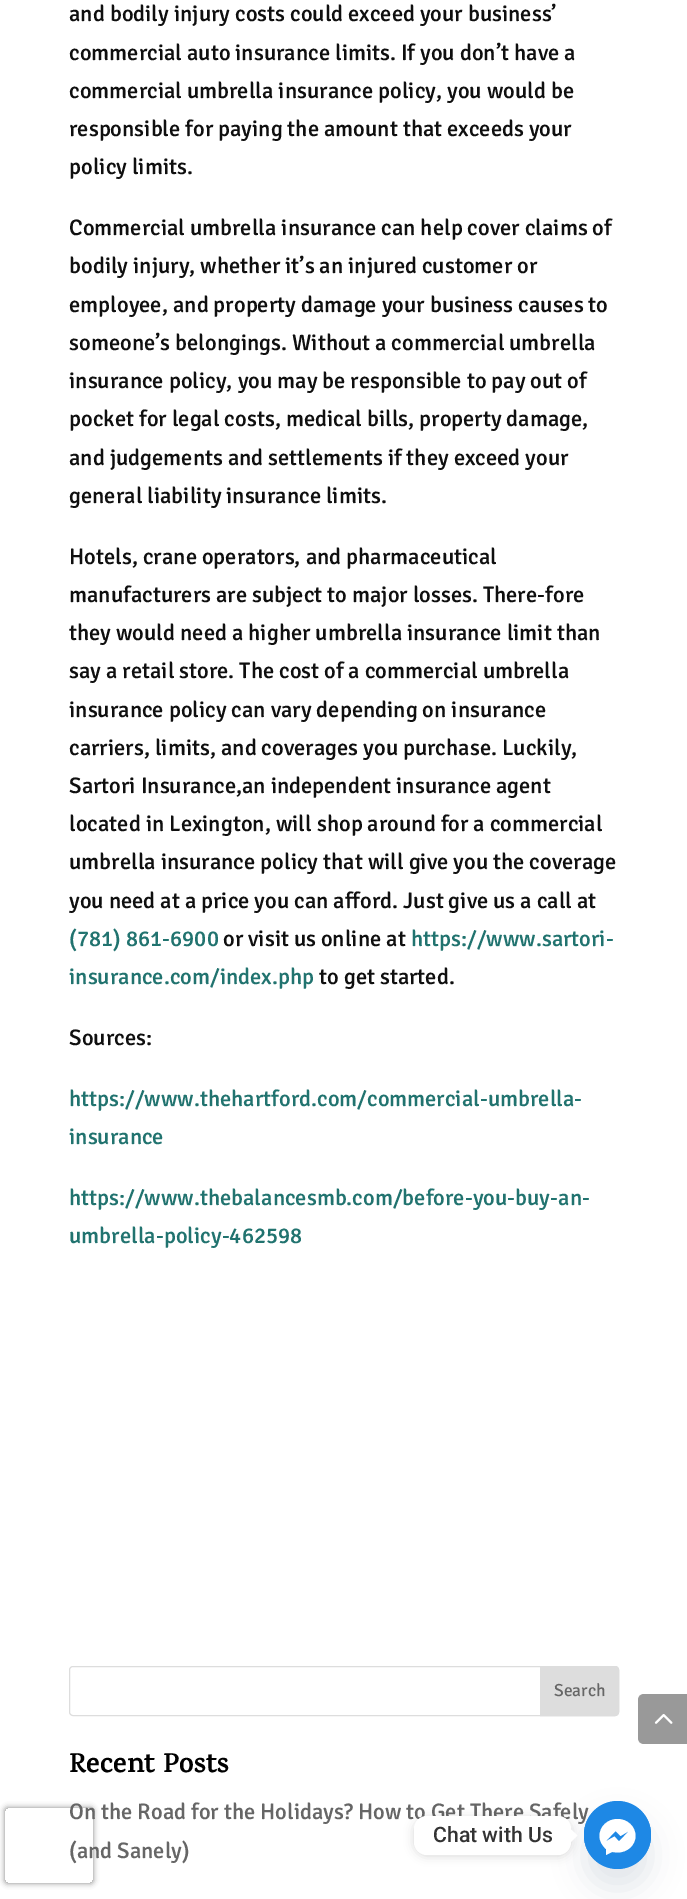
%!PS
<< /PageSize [687 1899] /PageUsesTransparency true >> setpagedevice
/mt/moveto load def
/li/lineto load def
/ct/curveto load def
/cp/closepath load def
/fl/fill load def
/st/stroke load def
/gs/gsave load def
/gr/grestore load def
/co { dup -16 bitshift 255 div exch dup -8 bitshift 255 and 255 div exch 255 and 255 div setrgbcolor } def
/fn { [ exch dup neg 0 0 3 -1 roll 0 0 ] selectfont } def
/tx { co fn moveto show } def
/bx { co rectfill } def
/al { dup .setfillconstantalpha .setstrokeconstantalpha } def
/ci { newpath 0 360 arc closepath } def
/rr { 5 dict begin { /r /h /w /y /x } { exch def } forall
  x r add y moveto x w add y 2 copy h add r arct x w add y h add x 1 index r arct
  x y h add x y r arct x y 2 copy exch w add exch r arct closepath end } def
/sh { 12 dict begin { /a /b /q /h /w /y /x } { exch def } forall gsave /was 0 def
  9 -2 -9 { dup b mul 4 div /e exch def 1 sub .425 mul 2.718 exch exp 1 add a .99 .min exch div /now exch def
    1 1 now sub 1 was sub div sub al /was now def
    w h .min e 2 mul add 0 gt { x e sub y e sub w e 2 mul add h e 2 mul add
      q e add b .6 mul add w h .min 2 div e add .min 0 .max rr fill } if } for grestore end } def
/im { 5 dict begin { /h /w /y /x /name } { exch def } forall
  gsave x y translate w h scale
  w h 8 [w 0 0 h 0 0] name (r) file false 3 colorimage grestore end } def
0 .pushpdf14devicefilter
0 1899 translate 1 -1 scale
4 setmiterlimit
0 0 687 1899 16#FFFFFF bx
gs
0 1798 mt 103 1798 li 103 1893 li 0 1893 li cp 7.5 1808 mt 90.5 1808 li 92 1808 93 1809 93 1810.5 ct 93 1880.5 li 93 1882 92 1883 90.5 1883 ct 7.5 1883 li 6 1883 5 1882 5 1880.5 ct 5 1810.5 li 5 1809 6 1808 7.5 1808 ct cp eoclip newpath
16#808080 co
5 1808 88 75 2.5 3 1 sh
gr
16#DDDDDD co
69.5 1666.5 549 49 3.5 rr st
540.5 1666.5 mt 615 1666.5 li 617 1666.5 618.5 1668 618.5 1670 ct 618.5 1712 li 618.5 1714 617 1715.5 615 1715.5 ct 540.5 1715.5 li cp gs fl gr
st
16#999999 co
644 1694 mt 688 1694 li 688 1744 li 644 1744 li 640.5 1744 638 1741.5 638 1738 ct 638 1700 li 638 1696.5 640.5 1694 644 1694 ct cp fl
(media/1.raw) 654 1714 19 10 im
16#49687E co
584 1821 67 68 33.5 15 .16 sh
(and bodily injury costs could exceed your business’) 69 21 /Signika-Medium 22.5 16#0F0F0F tx
(commercial auto insurance limits. If you don’t have a) 69 60 /Signika-Medium 22.5 16#0F0F0F tx
(commercial umbrella insurance policy, you would be) 69 98 /Signika-Medium 22.5 16#0F0F0F tx
(responsible for paying the amount that exceeds your) 69 136 /Signika-Medium 22.5 16#0F0F0F tx
(policy limits.) 69 174 /Signika-Medium 22.5 16#0F0F0F tx
(Commercial umbrella insurance can help cover claims of) 69 235 /Signika-Medium 22.5 16#0F0F0F tx
(bodily injury, whether it’s an injured customer or) 69 273 /Signika-Medium 22.5 16#0F0F0F tx
(employee, and property damage your business causes to) 69 312 /Signika-Medium 22.5 16#0F0F0F tx
(someone’s belongings. Without a commercial umbrella) 69 350 /Signika-Medium 22.5 16#0F0F0F tx
(insurance policy, you may be responsible to pay out of) 69 388 /Signika-Medium 22.5 16#0F0F0F tx
(pocket for legal costs, medical bills, property damage,) 69 426 /Signika-Medium 22.5 16#0F0F0F tx
(and judgements and settlements if they exceed your) 69 465 /Signika-Medium 22.5 16#0F0F0F tx
(general liability insurance limits.) 69 503 /Signika-Medium 22.5 16#0F0F0F tx
(Hotels, crane operators, and pharmaceutical) 69 564 /Signika-Medium 22.5 16#0F0F0F tx
(manufacturers are subject to major losses. There-fore) 69 602 /Signika-Medium 22.5 16#0F0F0F tx
(they would need a higher umbrella insurance limit than) 69 640 /Signika-Medium 22.5 16#0F0F0F tx
(say a retail store. The cost of a commercial umbrella) 69 678 /Signika-Medium 22.5 16#0F0F0F tx
(insurance policy can vary depending on insurance) 69 717 /Signika-Medium 22.5 16#0F0F0F tx
(carriers, limits, and coverages you purchase. Luckily,) 69 755 /Signika-Medium 22.5 16#0F0F0F tx
(Sartori Insurance,an independent insurance agent) 69 793 /Signika-Medium 22.5 16#0F0F0F tx
(located in Lexington, will shop around for a commercial) 69 831 /Signika-Medium 22.5 16#0F0F0F tx
(umbrella insurance policy that will give you the coverage) 69 869 /Signika-Medium 22.5 16#0F0F0F tx
(you need at a price you can afford. Just give us a call at) 69 908 /Signika-Medium 22.5 16#0F0F0F tx
(\(781\) 861-6900) 69 946 /Signika-Medium 22.5 16#21736F tx
(or visit us online at) 223 946 /Signika-Medium 22.5 16#0F0F0F tx
(https://www.sartori-) 411 946 /Signika-Medium 22.5 16#21736F tx
(insurance.com/index.php) 69 984 /Signika-Medium 22.5 16#21736F tx
(to get started.) 319 984 /Signika-Medium 22.5 16#0F0F0F tx
(Sources:) 69 1045 /Signika-Medium 22.5 16#0F0F0F tx
(https://www.thehartford.com/commercial-umbrella-) 69 1106 /Signika-Medium 22.5 16#21736F tx
(insurance) 69 1144 /Signika-Medium 22.5 16#21736F tx
(https://www.thebalancesmb.com/before-you-buy-an-) 69 1205 /Signika-Medium 22.5 16#21736F tx
(umbrella-policy-462598) 69 1243 /Signika-Medium 22.5 16#21736F tx
(Search) 554 1696 /Signika-Regular 17.5 16#666666 tx
(Recent Posts) 69 1772 /Karma-Bold 27.5 16#000000 tx
(On the Road for the Holidays? How to Get There Safely) 69 1819 /Signika-Medium 22.5 16#666666 tx
(\(and Sanely\)) 69 1858 /Signika-Medium 22.5 16#666666 tx
16#1E88E5 co
584 1801 67 68 33.5 rr fl
617.5 1835 33.5 ci fl
16#000000 co
414 1818 157 38 13 5 .15 sh
16#FFFFFF co
571 1842 mt 571 1829.5 li 577.5 1835.5 li cp fl
414 1816 157 39 13 rr fl
(Chat with Us) 433 1842 /Roboto-Medium 21.25 16#333333 tx
16#FFFFFF co
599.5 1836 mt 599.5 1826.5 607.5 1819 617.5 1819 ct 627.5 1819 635.5 1826.5 635.5 1836 ct 635.5 1845 627.5 1852.5 617.5 1852.5 ct 615.5 1852.5 614 1852 612 1852 ct 606 1855 li 606 1849 li 602 1845.5 599.5 1841 599.5 1836 ct cp 614.5 1836.5 mt 619 1841.5 li 629 1831 li 620.5 1836 li 615.5 1831 li 605.5 1841.5 li cp eofill
.poppdf14devicefilter showpage
